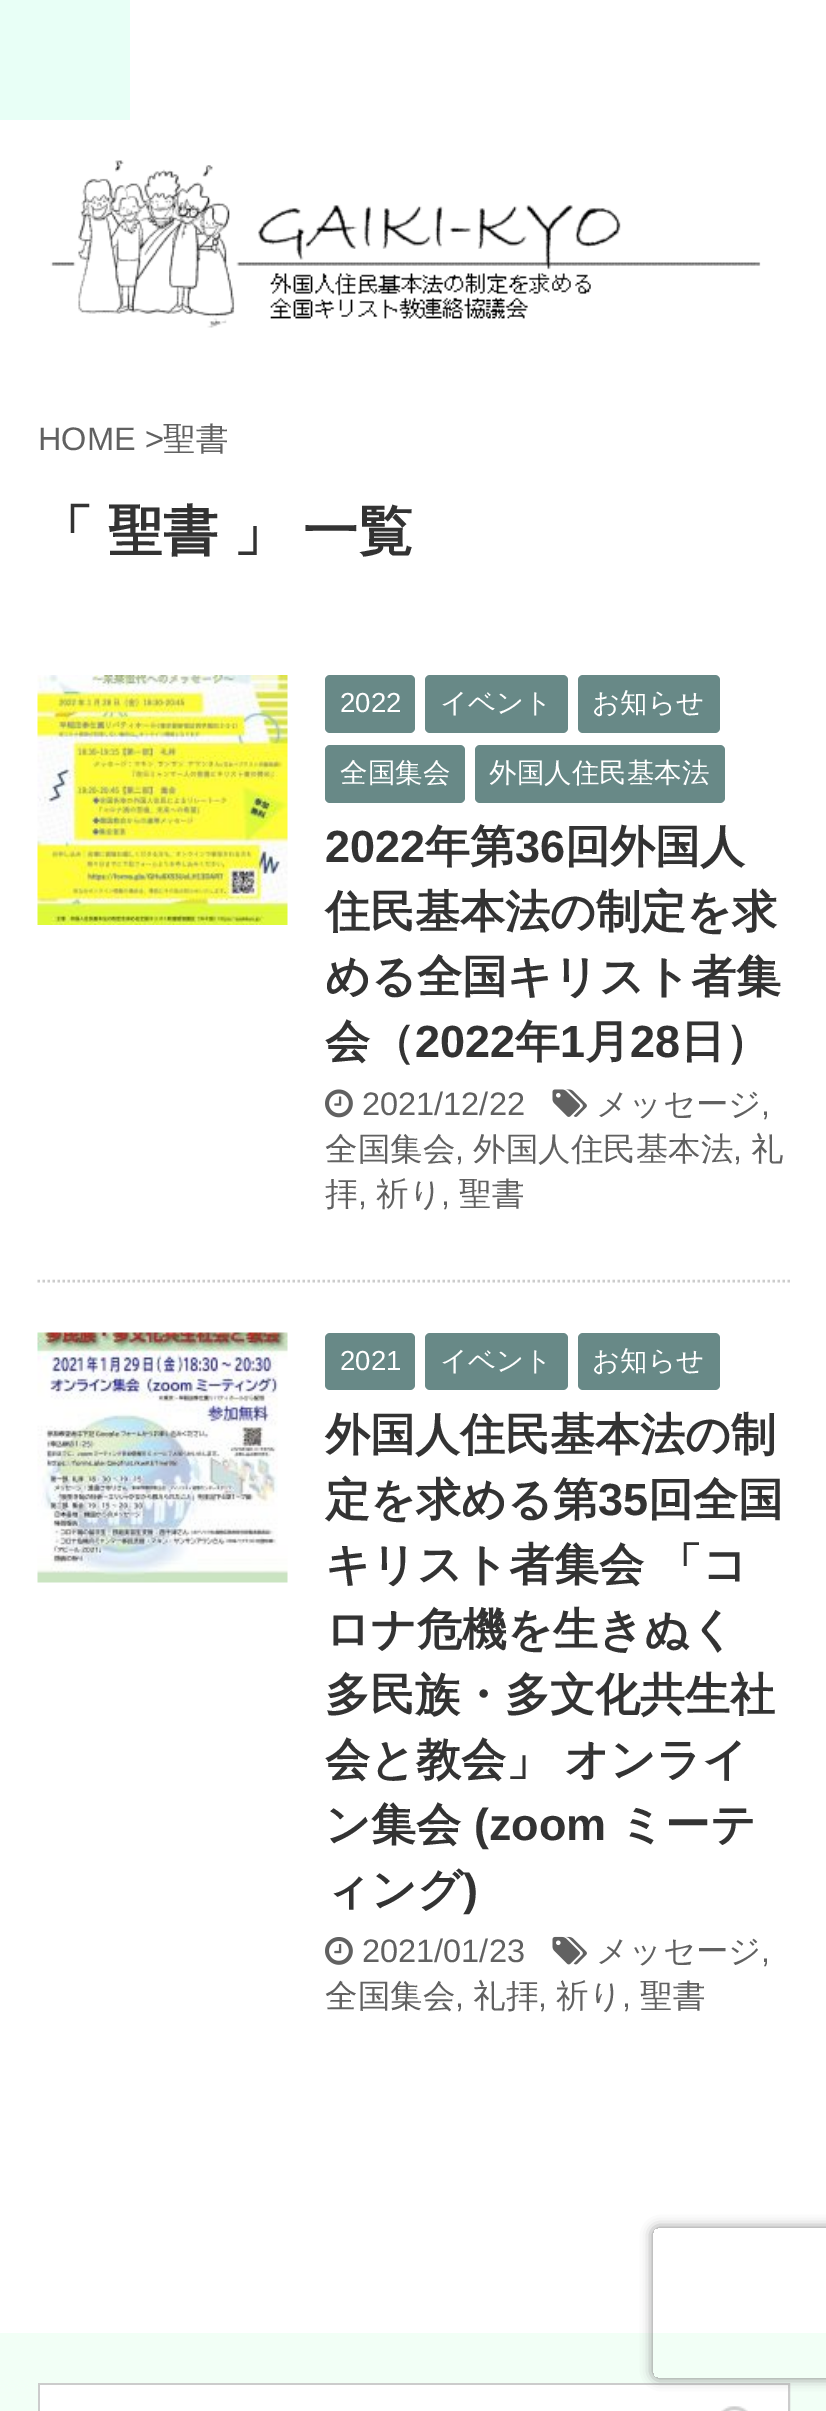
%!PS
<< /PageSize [826 2411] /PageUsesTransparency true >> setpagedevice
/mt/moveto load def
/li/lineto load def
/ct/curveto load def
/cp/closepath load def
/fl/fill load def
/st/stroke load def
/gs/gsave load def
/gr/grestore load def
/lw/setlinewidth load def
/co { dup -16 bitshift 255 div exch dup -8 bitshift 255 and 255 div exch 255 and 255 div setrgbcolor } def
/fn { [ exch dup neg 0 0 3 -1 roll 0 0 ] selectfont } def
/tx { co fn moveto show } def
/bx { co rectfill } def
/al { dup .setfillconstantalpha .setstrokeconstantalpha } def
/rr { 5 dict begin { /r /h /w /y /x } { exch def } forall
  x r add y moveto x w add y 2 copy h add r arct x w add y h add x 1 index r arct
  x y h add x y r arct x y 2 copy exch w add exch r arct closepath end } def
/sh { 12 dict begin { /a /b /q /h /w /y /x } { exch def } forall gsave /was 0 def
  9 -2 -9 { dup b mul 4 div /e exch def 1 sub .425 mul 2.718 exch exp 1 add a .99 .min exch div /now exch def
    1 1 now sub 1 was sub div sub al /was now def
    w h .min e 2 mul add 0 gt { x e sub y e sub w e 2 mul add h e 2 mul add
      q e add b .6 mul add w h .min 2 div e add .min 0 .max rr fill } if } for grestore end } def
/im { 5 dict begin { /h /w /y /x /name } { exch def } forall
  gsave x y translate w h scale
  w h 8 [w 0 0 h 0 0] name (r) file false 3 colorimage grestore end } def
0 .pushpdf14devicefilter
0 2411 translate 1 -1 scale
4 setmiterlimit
0 0 826 2411 16#F2FFF6 bx
0 0 826 2333 16#FFFFFF bx
0 0 130 120 16#E8FFF6 bx
(media/1.raw) 50 160 711 168 im
16#CCCCCC co
2.5 lw
[2.5 2.5] 0 setdash
37.5 1281 mt 790 1281 li st
(media/2.raw) 37 675 251 250 im
16#688987 co
325 675 90 58 5 rr fl
425 675 143 58 5 rr fl
578 675 142 58 5 rr fl
325 745 140 58 5 rr fl
475 745 250 58 5 rr fl
(media/3.raw) 325 1089 28 29 im
(media/4.raw) 552 1089 35 28 im
(media/5.raw) 37 1332 251 251 im
325 1333 90 57 5 rr fl
425 1333 143 57 5 rr fl
578 1333 142 57 5 rr fl
(media/6.raw) 325 1937 28 28 im
(media/7.raw) 552 1936 35 29 im
16#CCCCCC co
3 lw
[] 0 setdash
39.5 2384.5 749 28 rectstroke
40 2385 748 26 16#FFFFFF bx
(media/8.raw) 721 2406 27 5 im
gs
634 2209 mt 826 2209 li 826 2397 li 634 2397 li cp 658 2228 mt 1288 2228 li 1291 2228 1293 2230 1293 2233 ct 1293 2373 li 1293 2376 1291 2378 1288 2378 ct 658 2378 li 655 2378 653 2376 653 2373 ct 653 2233 li 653 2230 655 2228 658 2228 ct cp eoclip newpath
16#808080 co
653 2228 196 150 5 6 1 sh
gr
(HOME >) 38 450 /LiberationSans-Regular 32.5 16#616161 tx
(聖書) 163 450 /WenQuanYiZenHei-Medium 32.5 16#616161 tx
(「) 38 550 /WenQuanYiZenHei-Bold 55 16#333333 tx
(聖書) 108 550 /WenQuanYiZenHei-Bold 55 16#333333 tx
233 550 mt -1 0 32 (」 一覧) widthshow
(2022) 340 712 /LiberationSans-Regular 27.5 16#FFFFFF tx
(イベント) 440 712 /WenQuanYiZenHei-Medium 27.5 16#FFFFFF tx
(お知らせ) 592 712 /WenQuanYiZenHei-Medium 27.5 16#FFFFFF tx
(全国集会) 340 782 /WenQuanYiZenHei-Medium 27.5 16#FFFFFF tx
(外国人住民基本法) 489 782 /WenQuanYiZenHei-Medium 27.5 16#FFFFFF tx
(2022) 325 862 /LiberationSans-Bold 45 16#333333 tx
(年第) 425 862 /WenQuanYiZenHei-Bold 45 16#333333 tx
(36) 515 862 /LiberationSans-Bold 45 16#333333 tx
(回外国人) 565 862 /WenQuanYiZenHei-Bold 45 16#333333 tx
(住民基本法の制定を求) 325 927 /WenQuanYiZenHei-Bold 45 16#333333 tx
(める全国キリスト者集) 325 992 /WenQuanYiZenHei-Bold 45 16#333333 tx
(会（) 325 1057 /WenQuanYiZenHei-Bold 45 16#333333 tx
(2022) 415 1057 /LiberationSans-Bold 45 16#333333 tx
(年) 515 1057 /WenQuanYiZenHei-Bold 45 16#333333 tx
(1) 560 1057 /LiberationSans-Bold 45 16#333333 tx
(月) 585 1057 /WenQuanYiZenHei-Bold 45 16#333333 tx
(28) 630 1057 /LiberationSans-Bold 45 16#333333 tx
(日）) 680 1057 /WenQuanYiZenHei-Bold 45 16#333333 tx
(メッセージ) 596 1115 /WenQuanYiZenHei-Medium 32.5 16#616161 tx
(,) 761 1115 /LiberationSans-Regular 32.5 16#616161 tx
(全国集会) 325 1160 /WenQuanYiZenHei-Medium 32.5 16#616161 tx
(,) 455 1160 /LiberationSans-Regular 32.5 16#616161 tx
(外国人住民基本法) 473 1160 /WenQuanYiZenHei-Medium 32.5 16#616161 tx
(,) 733 1160 /LiberationSans-Regular 32.5 16#616161 tx
(礼) 751 1160 /WenQuanYiZenHei-Medium 32.5 16#616161 tx
(拝) 325 1205 /WenQuanYiZenHei-Medium 32.5 16#616161 tx
(,) 358 1205 /LiberationSans-Regular 32.5 16#616161 tx
(祈り) 376 1205 /WenQuanYiZenHei-Medium 32.5 16#616161 tx
(,) 441 1205 /LiberationSans-Regular 32.5 16#616161 tx
(聖書) 459 1205 /WenQuanYiZenHei-Medium 32.5 16#616161 tx
(2021/12/22) 362 1115 /LiberationSans-Regular 32.5 16#616161 tx
(2021) 340 1370 /LiberationSans-Regular 27.5 16#FFFFFF tx
(イベント) 440 1370 /WenQuanYiZenHei-Medium 27.5 16#FFFFFF tx
(お知らせ) 592 1370 /WenQuanYiZenHei-Medium 27.5 16#FFFFFF tx
(外国人住民基本法の制) 325 1450 /WenQuanYiZenHei-Bold 45 16#333333 tx
(定を求める第) 325 1515 /WenQuanYiZenHei-Bold 45 16#333333 tx
(35) 598 1515 /LiberationSans-Bold 45 16#333333 tx
(回全国) 648 1515 /WenQuanYiZenHei-Bold 45 16#333333 tx
325 1580 mt -1 0 32 (キリスト者集会 「コ) widthshow
(ロナ危機を生きぬく) 325 1645 /WenQuanYiZenHei-Bold 45 16#333333 tx
(多民族・多文化共生社) 325 1710 /WenQuanYiZenHei-Bold 45 16#333333 tx
325 1775 mt -1 0 32 (会と教会」 オンライ) widthshow
(ン集会) 325 1840 /WenQuanYiZenHei-Bold 45 16#333333 tx
(\(zoom) 474 1840 /LiberationSans-Bold 45 16#333333 tx
(ミーテ) 619 1840 /WenQuanYiZenHei-Bold 45 16#333333 tx
(ィング) 325 1905 /WenQuanYiZenHei-Bold 45 16#333333 tx
(\)) 463 1905 /LiberationSans-Bold 45 16#333333 tx
(メッセージ) 596 1962 /WenQuanYiZenHei-Medium 32.5 16#616161 tx
(,) 761 1962 /LiberationSans-Regular 32.5 16#616161 tx
(全国集会) 325 2007 /WenQuanYiZenHei-Medium 32.5 16#616161 tx
(,) 455 2007 /LiberationSans-Regular 32.5 16#616161 tx
(礼拝) 473 2007 /WenQuanYiZenHei-Medium 32.5 16#616161 tx
(,) 538 2007 /LiberationSans-Regular 32.5 16#616161 tx
(祈り) 556 2007 /WenQuanYiZenHei-Medium 32.5 16#616161 tx
(,) 622 2007 /LiberationSans-Regular 32.5 16#616161 tx
(聖書) 640 2007 /WenQuanYiZenHei-Medium 32.5 16#616161 tx
(2021/01/23) 362 1962 /LiberationSans-Regular 32.5 16#616161 tx
.poppdf14devicefilter showpage
